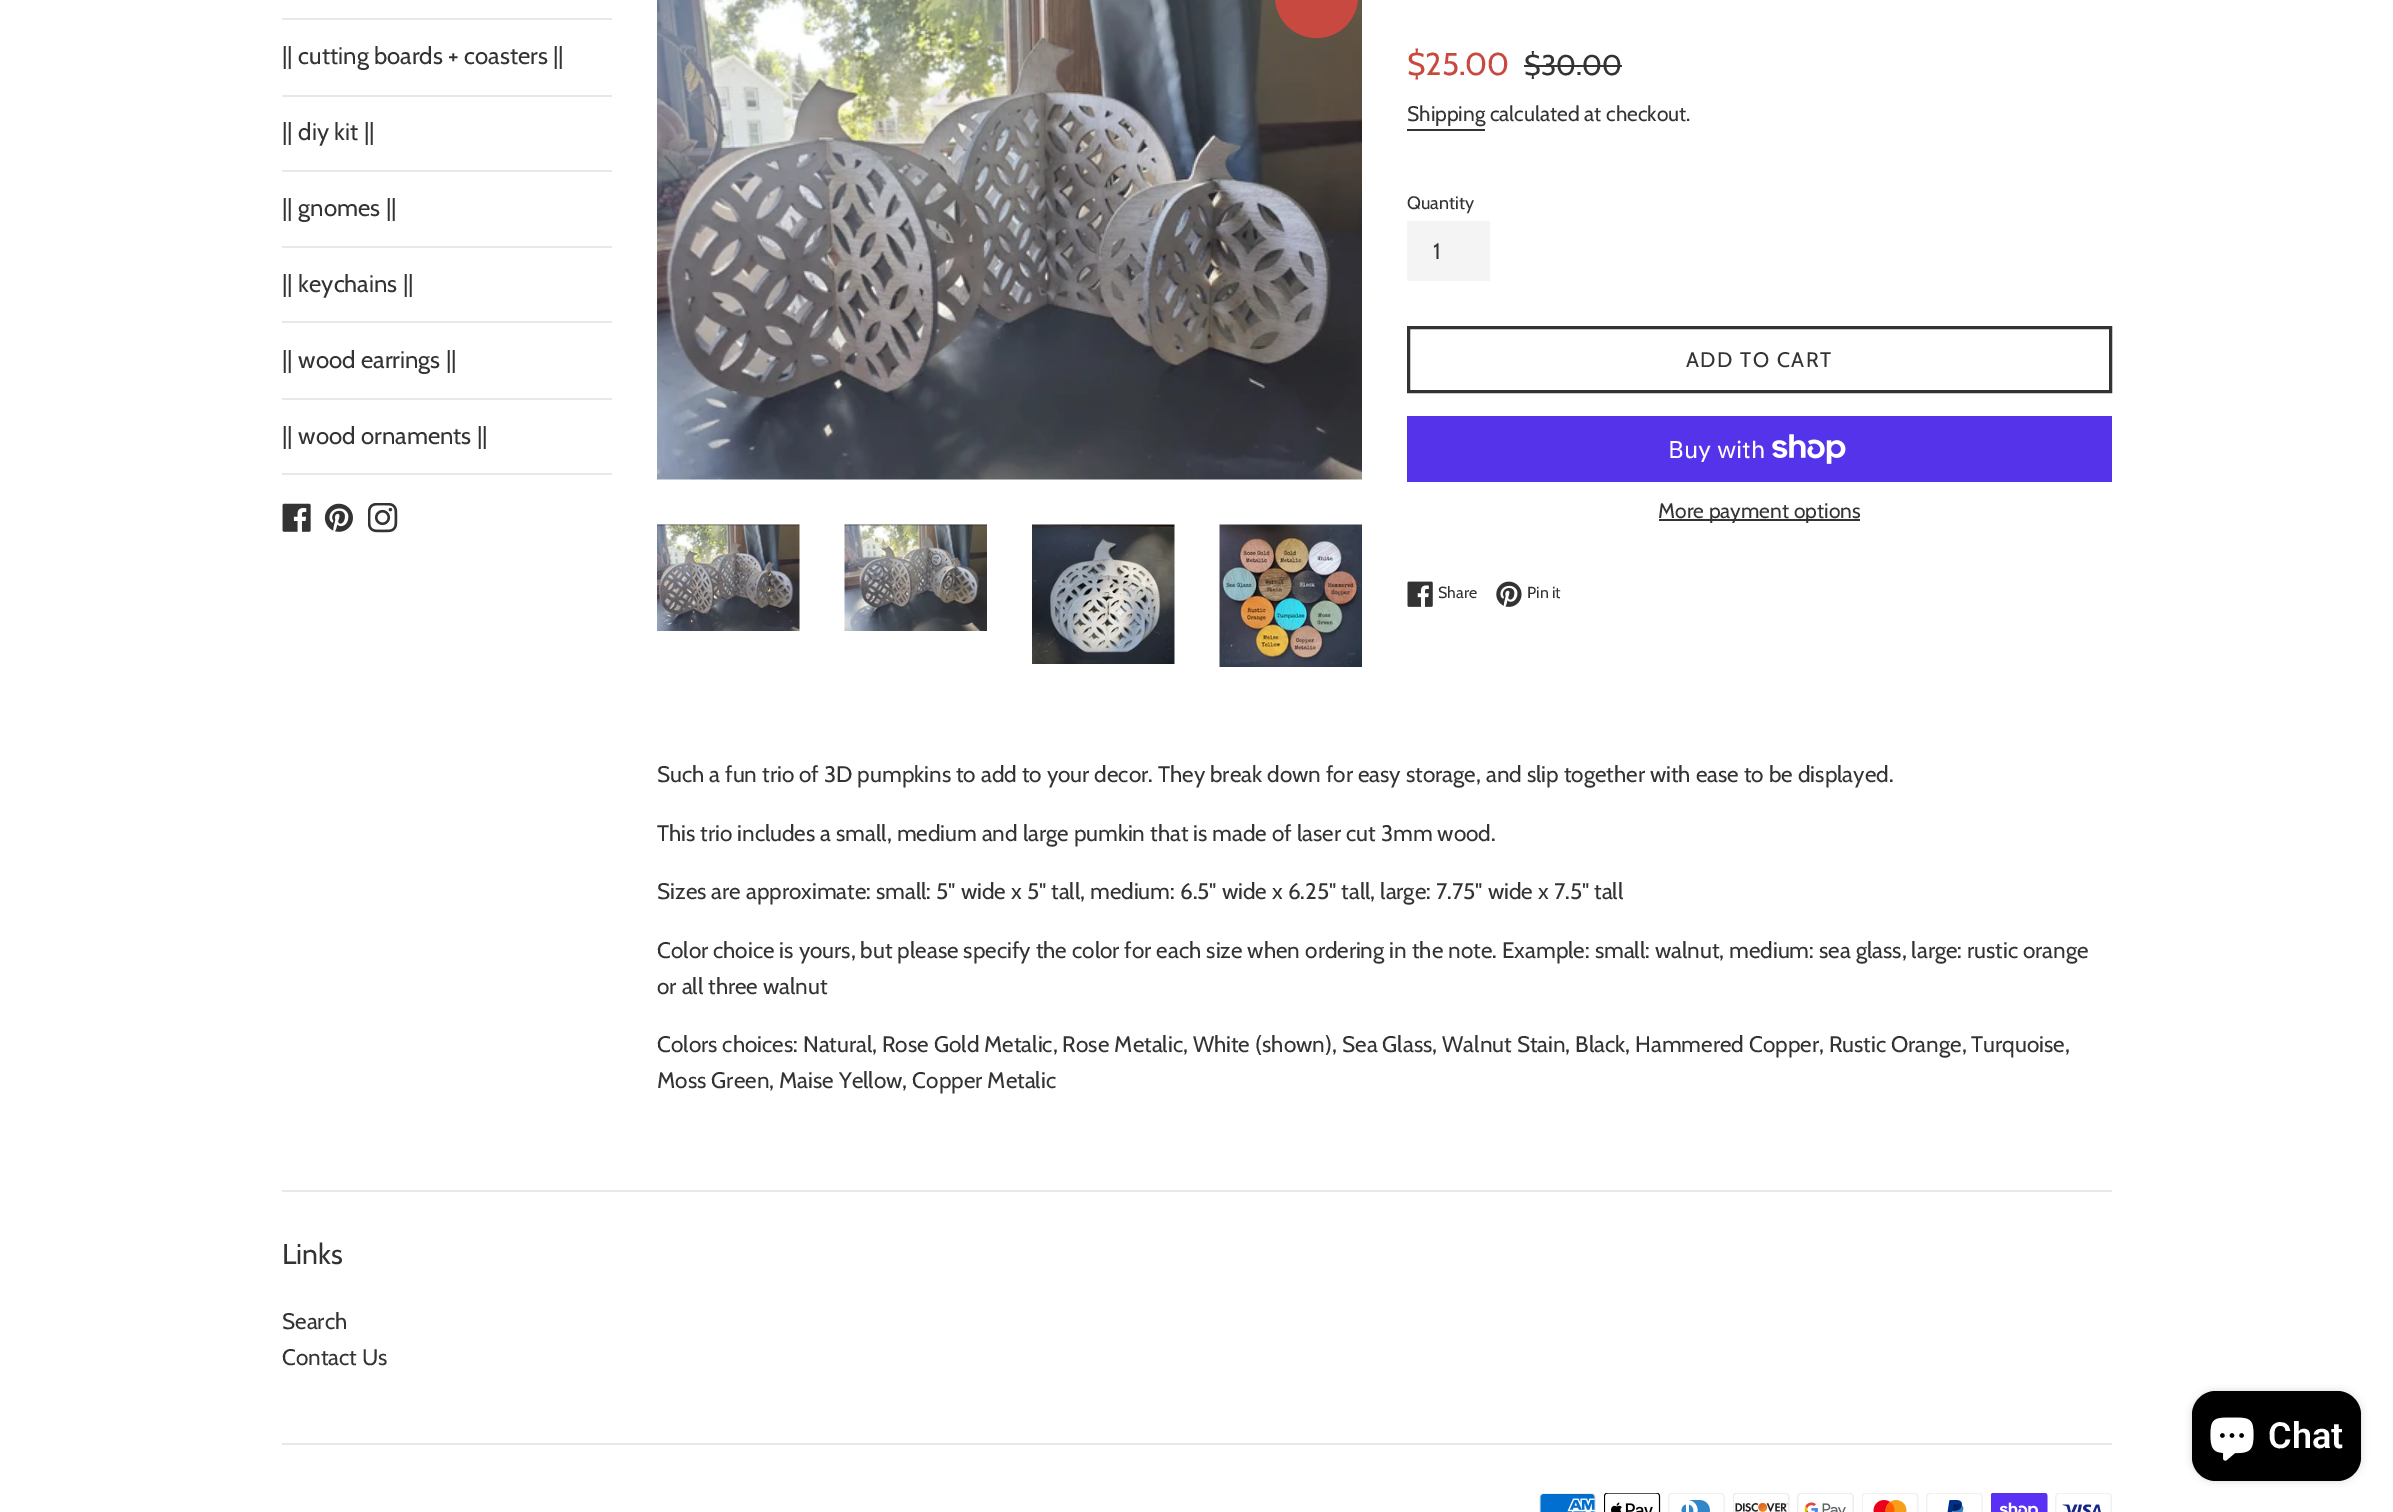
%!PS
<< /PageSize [2393 1512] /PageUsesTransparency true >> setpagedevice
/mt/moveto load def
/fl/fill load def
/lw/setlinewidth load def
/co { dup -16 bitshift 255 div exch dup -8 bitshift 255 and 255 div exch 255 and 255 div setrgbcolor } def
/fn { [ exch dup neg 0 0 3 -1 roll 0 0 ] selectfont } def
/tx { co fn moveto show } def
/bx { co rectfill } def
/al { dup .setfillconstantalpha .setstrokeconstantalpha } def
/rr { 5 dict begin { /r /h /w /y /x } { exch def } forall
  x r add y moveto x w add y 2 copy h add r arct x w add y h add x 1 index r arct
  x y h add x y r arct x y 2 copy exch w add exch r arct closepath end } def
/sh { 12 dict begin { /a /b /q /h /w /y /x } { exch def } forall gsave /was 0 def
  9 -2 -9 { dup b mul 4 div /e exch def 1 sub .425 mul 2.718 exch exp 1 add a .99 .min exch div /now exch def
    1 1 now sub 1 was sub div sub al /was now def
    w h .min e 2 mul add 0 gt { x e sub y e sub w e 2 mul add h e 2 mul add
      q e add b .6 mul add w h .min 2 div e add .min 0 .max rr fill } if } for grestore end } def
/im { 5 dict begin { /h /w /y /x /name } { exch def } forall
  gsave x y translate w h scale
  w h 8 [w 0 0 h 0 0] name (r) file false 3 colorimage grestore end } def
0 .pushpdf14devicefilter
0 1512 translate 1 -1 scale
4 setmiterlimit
0 0 2393 1512 16#FFFFFF bx
282 18 330 2 16#E8E8E8 bx
282 95 330 2 16#E8E8E8 bx
282 170 330 2 16#E8E8E8 bx
282 246 330 2 16#E8E8E8 bx
282 321 330 2 16#E8E8E8 bx
282 398 330 2 16#E8E8E8 bx
282 473 330 2 16#E8E8E8 bx
(media/1.raw) 282 503 29 29 im
(media/2.raw) 324 503 29 29 im
(media/3.raw) 368 503 30 30 im
(media/4.raw) 657 0 705 480 im
16#C8493F co
1275 -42 83 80 41.5 rr fl
(media/5.raw) 657 524 143 107 im
(media/6.raw) 844 524 143 107 im
(media/7.raw) 1032 524 143 140 im
(media/8.raw) 1219 524 143 143 im
1524 65 98 2 16#333333 bx
1407 129 78 2 16#333333 bx
1407 221 83 60 16#F4F4F4 bx
16#333333 co
3 lw
1408.5 327.5 702 64 rectstroke
1407 416 705 66 16#5433EB bx
(media/9.raw) 1772 434 74 30 im
1659 519 201 2 16#333333 bx
(media/10.raw) 1407 581 26 26 im
(media/11.raw) 1496 581 26 26 im
282 1190 1830 2 16#E8E8E8 bx
282 1443 1830 2 16#E8E8E8 bx
(media/12.raw) 1539 1493 57 19 im
(media/13.raw) 1604 1493 57 19 im
(media/14.raw) 1668 1493 57 19 im
(media/15.raw) 1733 1493 57 19 im
(media/16.raw) 1797 1493 57 19 im
(media/17.raw) 1862 1493 57 19 im
(media/18.raw) 1926 1493 57 19 im
(media/19.raw) 1991 1493 57 19 im
(media/20.raw) 2055 1493 57 19 im
16#000000 co
2192 1391 169 90 24 4 .15 sh
2192 1391 169 90 24 rr fl
(media/21.raw) 2210 1417 44 44 im
(|| cutting boards + coasters ||) 282 64 /Cabin-Regular 24 16#333333 tx
(|| diy kit ||) 282 140 /Cabin-Regular 24 16#333333 tx
(|| gnomes ||) 282 216 /Cabin-Regular 24 16#333333 tx
(|| keychains ||) 282 292 /Cabin-Regular 24 16#333333 tx
(|| wood earrings ||) 282 368 /Cabin-Regular 24 16#333333 tx
(|| wood ornaments ||) 282 444 /Cabin-Regular 24 16#333333 tx
($25.00) 1407 75 /Cabin-Regular 31.5 16#C8493F tx
($30.00) 1524 75 /Cabin-Regular 28.5 16#333333 tx
(Shipping calculated at checkout.) 1407 121 /Cabin-Regular 21 16#333333 tx
(Quantity) 1407 209 /Cabin-Regular 18 16#333333 tx
(1) 1433 259 /Cabin-Regular 22.5 16#333333 tx
/Cabin-Regular 21 fn
1686 367 mt 1.5 0 (ADD TO CART) ashow
(Buy with) 1668 458 /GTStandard-Regular 24 16#FFFFFF tx
(More payment options) 1658 518 /Cabin-Regular 21 16#333333 tx
(Share) 1438 598 /Cabin-Regular 16 16#333333 tx
(Pin it) 1527 598 /Cabin-Regular 16 16#333333 tx
(Such a fun trio of 3D pumpkins to add to your decor. They break down for easy storage, and slip together with ease to be displayed.) 657 782 /Cabin-Regular 22.5 16#333333 tx
(This trio includes a small, medium and large pumkin that is made of laser cut 3mm wood.) 657 841 /Cabin-Regular 22.5 16#333333 tx
(Sizes are approximate: small: 5" wide x 5" tall, medium: 6.5" wide x 6.25" tall, large: 7.75" wide x 7.5" tall) 657 899 /Cabin-Regular 22.5 16#333333 tx
(Color choice is yours, but please specify the color for each size when ordering in the note. Example: small: walnut, medium: sea glass, large: rustic orange) 657 958 /Cabin-Regular 22.5 16#333333 tx
(or all three walnut) 657 994 /Cabin-Regular 22.5 16#333333 tx
(Colors choices: Natural, Rose Gold Metalic, Rose Metalic, White \(shown\), Sea Glass, Walnut Stain, Black, Hammered Copper, Rustic Orange, Turquoise,) 657 1052 /Cabin-Regular 22.5 16#333333 tx
(Moss Green, Maise Yellow, Copper Metalic) 657 1088 /Cabin-Regular 22.5 16#333333 tx
(Links) 282 1264 /Cabin-Regular 28.5 16#333333 tx
(Search) 282 1329 /Cabin-Regular 22.5 16#333333 tx
(Contact Us) 282 1365 /Cabin-Regular 22.5 16#333333 tx
(Chat) 2268 1448 /Roboto-SemiBold 36 16#FFFFFF tx
.poppdf14devicefilter showpage
